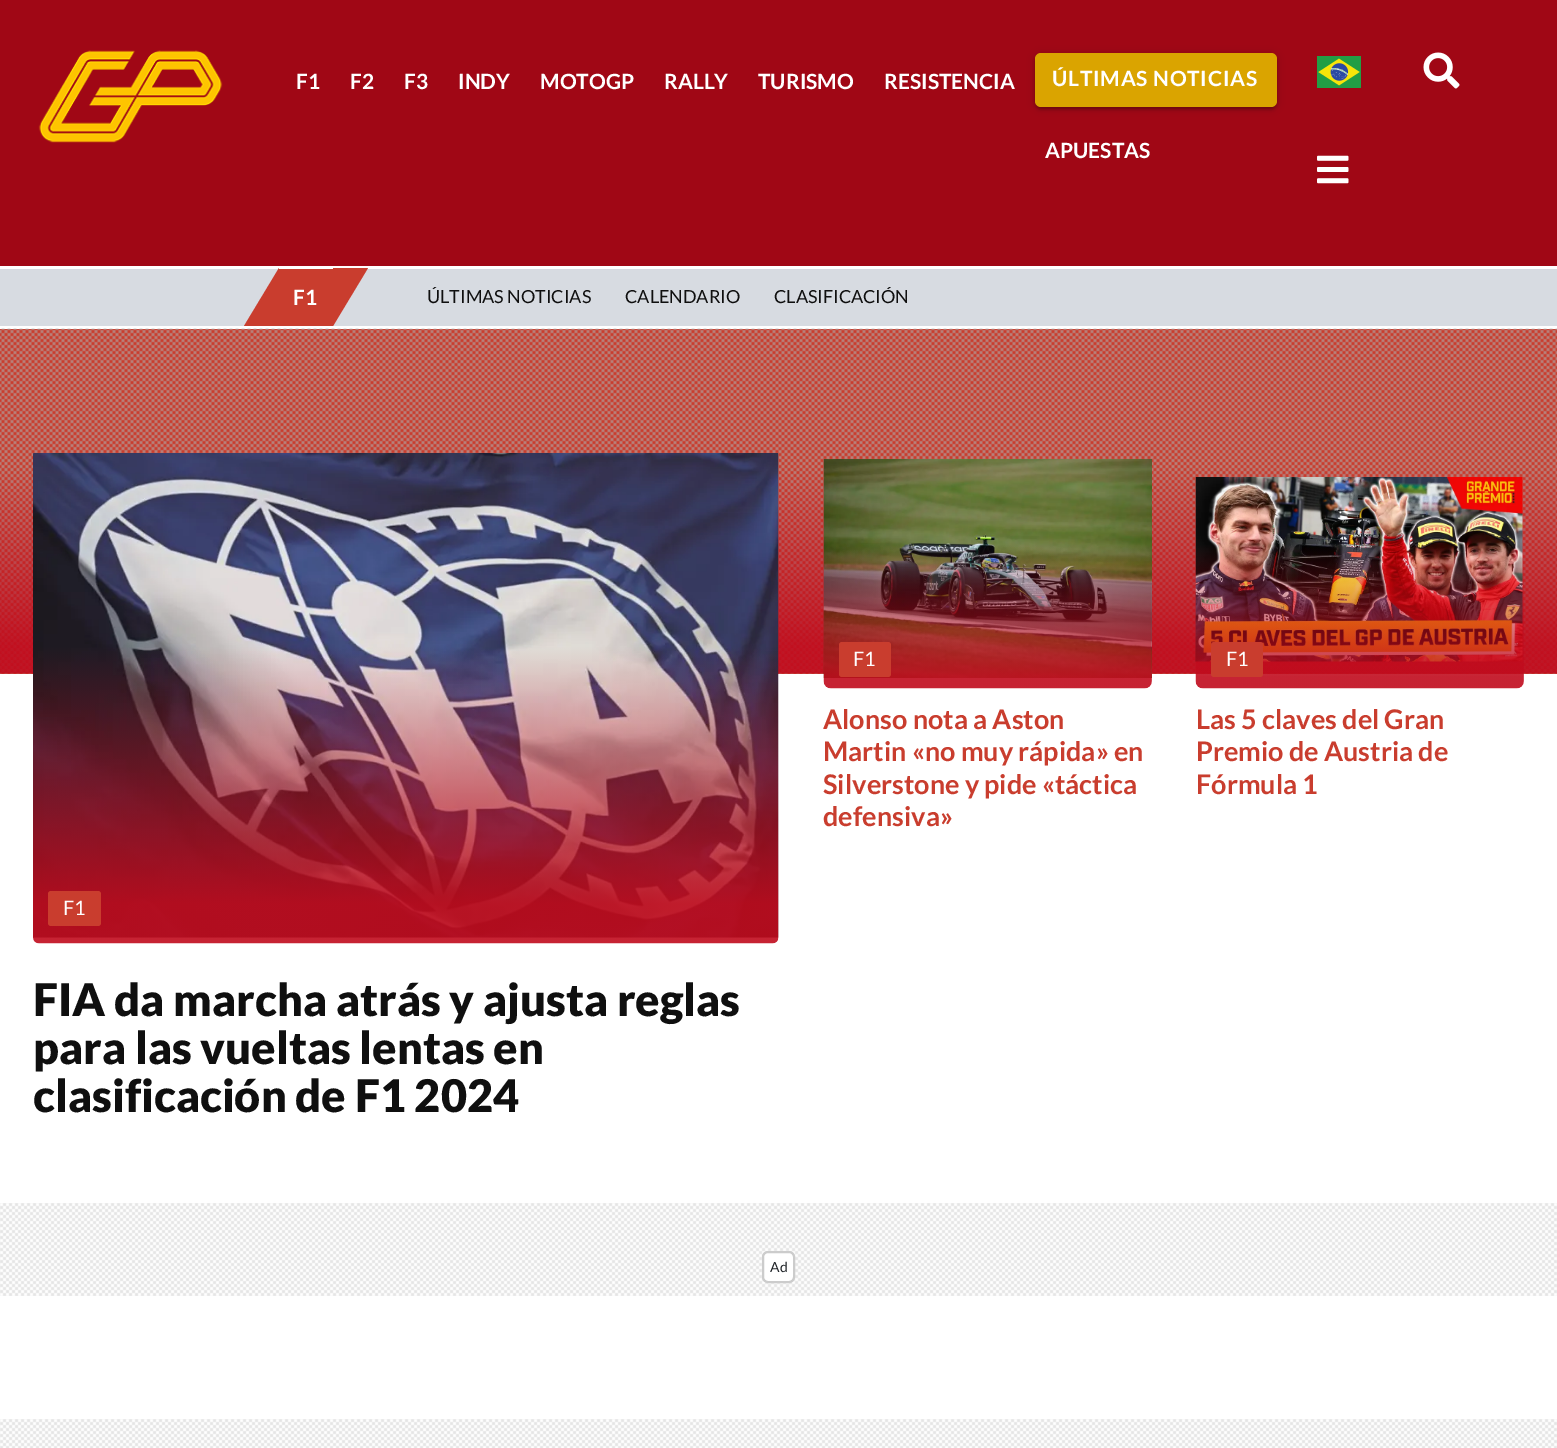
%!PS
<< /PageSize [1557 1448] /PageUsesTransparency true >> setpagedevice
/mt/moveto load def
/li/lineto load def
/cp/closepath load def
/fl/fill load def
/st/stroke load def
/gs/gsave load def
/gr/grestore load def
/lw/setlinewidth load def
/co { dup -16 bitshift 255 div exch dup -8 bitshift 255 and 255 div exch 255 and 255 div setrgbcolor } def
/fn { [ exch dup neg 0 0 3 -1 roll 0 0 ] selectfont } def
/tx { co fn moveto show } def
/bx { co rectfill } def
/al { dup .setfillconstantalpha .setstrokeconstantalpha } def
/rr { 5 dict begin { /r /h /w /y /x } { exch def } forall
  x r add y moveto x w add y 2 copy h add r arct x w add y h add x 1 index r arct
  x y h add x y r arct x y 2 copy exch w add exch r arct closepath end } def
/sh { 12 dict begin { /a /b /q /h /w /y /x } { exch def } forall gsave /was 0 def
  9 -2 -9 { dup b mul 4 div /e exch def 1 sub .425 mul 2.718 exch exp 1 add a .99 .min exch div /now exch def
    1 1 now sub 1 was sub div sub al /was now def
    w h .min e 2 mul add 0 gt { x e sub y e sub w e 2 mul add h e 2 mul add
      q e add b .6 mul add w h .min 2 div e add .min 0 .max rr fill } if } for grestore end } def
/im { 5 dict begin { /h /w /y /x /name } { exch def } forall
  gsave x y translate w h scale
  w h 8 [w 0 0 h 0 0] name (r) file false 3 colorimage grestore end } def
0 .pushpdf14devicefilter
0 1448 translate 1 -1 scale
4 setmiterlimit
0 0 1557 1448 16#FFFFFF bx
0 0 1557 266 16#A00715 bx
(media/1.raw) 38 50 185 93 im
16#000000 co
1035 54 242 54 6 4 .2 sh
1038 60 236 48 2 1 .12 sh
1035 56 242 54 6 1.5 .14 sh
16#DAA400 co
1035 53 242 54 6 rr fl
(media/2.raw) 1317 56 44 32 im
(media/3.raw) 1423 52 37 37 im
(media/4.raw) 1317 155 32 29 im
0 269 1557 57 16#D7DBE1 bx
16#C93D2E co
279 326 mt 244 326 li 279 268 li cp fl
279 269 54 57 16#C93D2E bx
333 268 mt 368 268 li 333 326 li cp fl
0 329 1557 345 16#C93D2E bx
(media/5.raw) 0 328 1557 346 im
(media/6.raw) 823 459 329 230 im
839 642 52 35 3 rr fl
(media/7.raw) 1195 477 329 212 im
1211 642 52 35 3 rr fl
(media/8.raw) 33 453 746 491 im
48 891 53 35 3 rr fl
(media/9.raw) 0 1203 1557 93 im
16#FFFFFF co
763 1252 31 30 5 rr gs fl gr
16#CCCCCC co
2 lw
st
(media/10.raw) 0 1419 1557 29 im
(F1) 296 89 /Lato-Bold 21 16#FFFFFF tx
(F2) 350 89 /Lato-Bold 21 16#FFFFFF tx
(F3) 404 89 /Lato-Bold 21 16#FFFFFF tx
(INDY) 458 89 /Lato-Bold 21 16#FFFFFF tx
(MOTOGP) 540 89 /Lato-Bold 21 16#FFFFFF tx
(RALLY) 664 89 /Lato-Bold 21 16#FFFFFF tx
(TURISMO) 758 89 /Lato-Bold 21 16#FFFFFF tx
(RESISTENCIA) 884 89 /Lato-Bold 21 16#FFFFFF tx
(APUESTAS) 1045 158 /Lato-Bold 21 16#FFFFFF tx
1052 86 mt .75 0 (ÚLTIMAS NOTICIAS) ashow
(F1) 293 305 /Lato-Bold 21 16#FFFFFF tx
(ÚLTIMAS NOTICIAS) 427 303 /Lato-Regular 18 16#0F0F0F tx
(CALENDARIO) 625 303 /Lato-Regular 18 16#0F0F0F tx
(CLASIFICACIÓN) 774 303 /Lato-Regular 18 16#0F0F0F tx
(F1) 853 666 /Lato-Regular 20 16#FFFFFF tx
(Alonso nota a Aston) 823 729 /Lato-Bold 27 16#C93D2E tx
(Martin «no muy rápida» en) 823 761 /Lato-Bold 27 16#C93D2E tx
(Silverstone y pide «táctica) 823 794 /Lato-Bold 27 16#C93D2E tx
(defensiva») 823 826 /Lato-Bold 27 16#C93D2E tx
(F1) 1226 666 /Lato-Regular 20 16#FFFFFF tx
(Las 5 claves del Gran) 1196 729 /Lato-Bold 27 16#C93D2E tx
(Premio de Austria de) 1196 761 /Lato-Bold 27 16#C93D2E tx
(Fórmula 1) 1196 794 /Lato-Bold 27 16#C93D2E tx
(F1) 63 915 /Lato-Regular 20 16#FFFFFF tx
(FIA da marcha atrás y ajusta reglas) 33 1016 /Lato-Black 45 16#0F0F0F tx
(para las vueltas lentas en) 33 1064 /Lato-Black 45 16#0F0F0F tx
(clasificación de F1 2024) 33 1112 /Lato-Black 45 16#0F0F0F tx
(Ad) 770 1272 /Lato-Regular 14 16#212529 tx
.poppdf14devicefilter showpage
